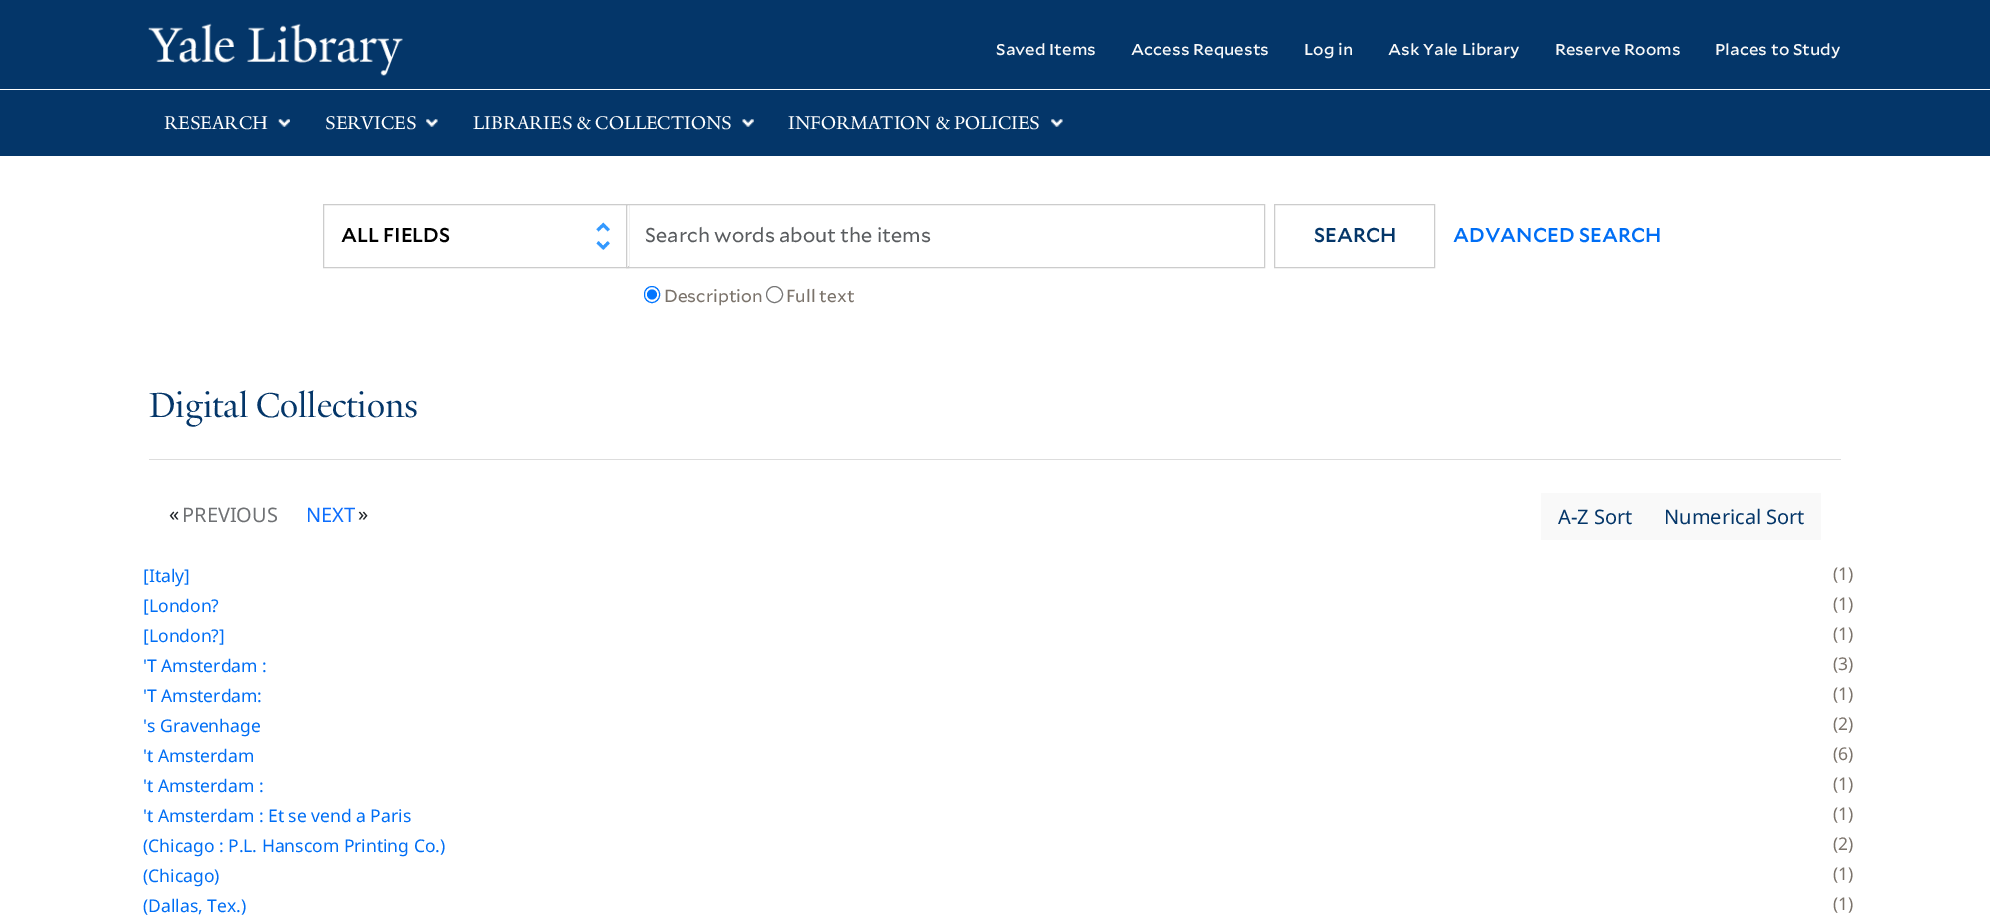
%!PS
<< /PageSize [1990 919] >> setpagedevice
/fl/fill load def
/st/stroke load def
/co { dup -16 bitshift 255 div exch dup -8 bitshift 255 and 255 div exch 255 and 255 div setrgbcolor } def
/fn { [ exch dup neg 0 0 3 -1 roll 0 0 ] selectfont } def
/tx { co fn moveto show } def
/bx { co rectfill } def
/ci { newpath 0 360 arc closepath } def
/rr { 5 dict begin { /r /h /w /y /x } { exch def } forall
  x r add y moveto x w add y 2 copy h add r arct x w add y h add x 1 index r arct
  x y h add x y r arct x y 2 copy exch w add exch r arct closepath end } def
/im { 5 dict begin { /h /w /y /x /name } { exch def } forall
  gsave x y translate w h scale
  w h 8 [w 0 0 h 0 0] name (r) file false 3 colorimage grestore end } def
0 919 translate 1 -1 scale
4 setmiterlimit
0 0 1990 919 16#FFFFFF bx
0 0 1990 89 16#043669 bx
(media/1.raw) 148 23 255 53 im
0 90 1990 66 16#043669 bx
(media/2.raw) 278 119 12 8 im
(media/3.raw) 426 119 12 8 im
(media/4.raw) 742 119 12 8 im
(media/3.raw) 1051 119 12 8 im
(media/5.raw) 596 222 14 28 im
16#CCCCCC co
323.5 204.5 305 63 rectstroke
628 205 1 61 16#FFFFFF bx
16#CCCCCC co
626.5 204.5 638 63 rectstroke
1274.5 204.5 160 63 rectstroke
16#0075FF co
644.5 286.5 15 16 7.5 rr st
652 294.5 5 ci fl
16#767676 co
774.5 294.5 8 ci st
149 459 1692 1 16#DDDDDD bx
1541 493 280 47 16#F9F9F9 bx
(Saved Items) 996 55 /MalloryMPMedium-Medium 15 16#F9F9F9 tx
(Access Requests) 1131 55 /MalloryMPMedium-Medium 15 16#F9F9F9 tx
(Log in) 1304 55 /MalloryMPMedium-Medium 15 16#F9F9F9 tx
(Ask Yale Library) 1388 55 /MalloryMPMedium-Medium 15 16#F9F9F9 tx
(Reserve Rooms) 1555 55 /MalloryMPMedium-Medium 15 16#F9F9F9 tx
(Places to Study) 1715 55 /MalloryMPMedium-Medium 15 16#F9F9F9 tx
(RESEARCH) 164 129 /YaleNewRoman-Regular 20 16#FFFFFF tx
(SERVICES) 325 129 /YaleNewRoman-Regular 20 16#FFFFFF tx
(LIBRARIES & COLLECTIONS) 473 129 /YaleNewRoman-Regular 20 16#FFFFFF tx
(INFORMATION & POLICIES) 788 129 /YaleNewRoman-Regular 20 16#FFFFFF tx
(ALL FIELDS) 341 242 /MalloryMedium-Medium 20 16#000000 tx
(Search words about the items) 645 242 /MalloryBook-Regular 20 16#595C5F tx
(SEARCH) 1314 242 /MalloryMedium-Medium 20 16#043669 tx
(ADVANCED SEARCH) 1453 242 /MalloryMedium-Medium 20 16#006EF5 tx
(Description) 664 302 /MalloryBook-Regular 17.5 16#7B736B tx
(Full text) 786 302 /MalloryBook-Regular 17.5 16#7B736B tx
(Digital Collections) 149 417 /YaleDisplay-Regular 37.5 16#043669 tx
(«) 169 521 /NotoSans-Regular 20 16#212529 tx
(PREVIOUS) 182 522 /NotoSans-Regular 20 16#6F7174 tx
(NEXT) 306 522 /NotoSans-Regular 20 16#0D6EFD tx
(») 358 521 /NotoSans-Regular 20 16#212529 tx
(A-Z Sort) 1558 524 /NotoSans-Regular 20 16#043669 tx
(Numerical Sort) 1664 524 /NotoSans-Regular 20 16#043669 tx
([Italy]) 143 582 /NotoSans-Regular 17.5 16#006EF5 tx
(\(1\)) 1833 580 /NotoSans-Regular 17.5 16#7B736B tx
([London?) 143 612 /NotoSans-Regular 17.5 16#006EF5 tx
(\(1\)) 1833 610 /NotoSans-Regular 17.5 16#7B736B tx
([London?]) 143 642 /NotoSans-Regular 17.5 16#006EF5 tx
(\(1\)) 1833 640 /NotoSans-Regular 17.5 16#7B736B tx
('T Amsterdam :) 143 672 /NotoSans-Regular 17.5 16#006EF5 tx
(\(3\)) 1833 670 /NotoSans-Regular 17.5 16#7B736B tx
('T Amsterdam:) 143 702 /NotoSans-Regular 17.5 16#006EF5 tx
(\(1\)) 1833 700 /NotoSans-Regular 17.5 16#7B736B tx
('s Gravenhage) 143 732 /NotoSans-Regular 17.5 16#006EF5 tx
(\(2\)) 1833 730 /NotoSans-Regular 17.5 16#7B736B tx
('t Amsterdam) 143 762 /NotoSans-Regular 17.5 16#006EF5 tx
(\(6\)) 1833 760 /NotoSans-Regular 17.5 16#7B736B tx
('t Amsterdam :) 143 792 /NotoSans-Regular 17.5 16#006EF5 tx
(\(1\)) 1833 790 /NotoSans-Regular 17.5 16#7B736B tx
('t Amsterdam : Et se vend a Paris) 143 822 /NotoSans-Regular 17.5 16#006EF5 tx
(\(1\)) 1833 820 /NotoSans-Regular 17.5 16#7B736B tx
(\(Chicago : P.L. Hanscom Printing Co.\)) 143 852 /NotoSans-Regular 17.5 16#006EF5 tx
(\(2\)) 1833 850 /NotoSans-Regular 17.5 16#7B736B tx
(\(Chicago\)) 143 882 /NotoSans-Regular 17.5 16#006EF5 tx
(\(1\)) 1833 880 /NotoSans-Regular 17.5 16#7B736B tx
(\(Dallas, Tex.\)) 143 912 /NotoSans-Regular 17.5 16#006EF5 tx
(\(1\)) 1833 910 /NotoSans-Regular 17.5 16#7B736B tx
showpage
